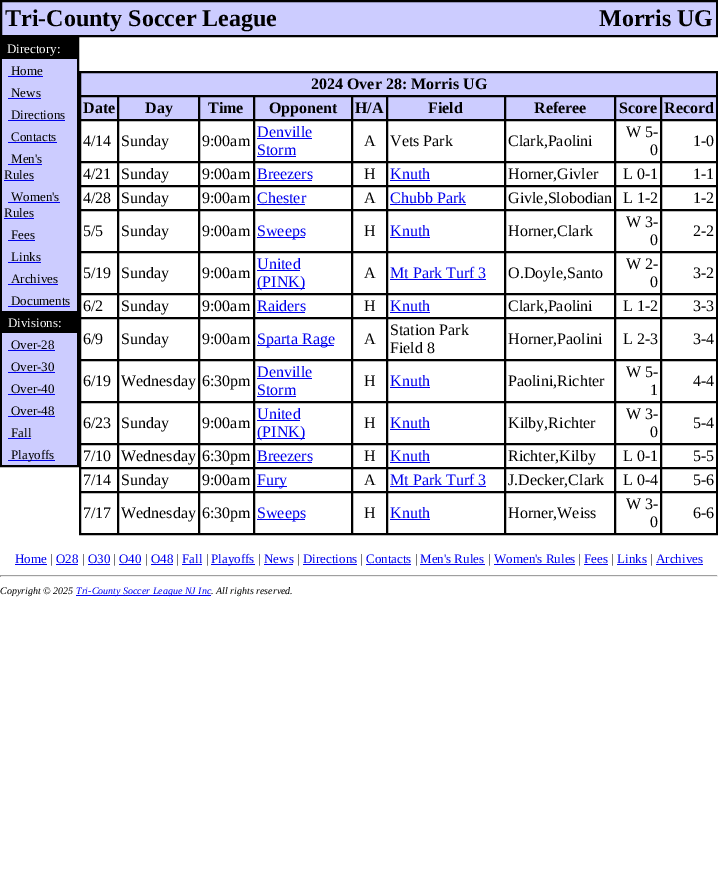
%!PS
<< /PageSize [718 881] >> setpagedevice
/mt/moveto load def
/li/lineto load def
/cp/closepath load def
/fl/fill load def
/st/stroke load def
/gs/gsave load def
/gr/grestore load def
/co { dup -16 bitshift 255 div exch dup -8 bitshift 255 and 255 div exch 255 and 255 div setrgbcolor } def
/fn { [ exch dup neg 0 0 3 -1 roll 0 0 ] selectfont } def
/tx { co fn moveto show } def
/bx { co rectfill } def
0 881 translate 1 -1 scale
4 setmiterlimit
0 0 718 881 16#FFFFFF bx
2 2 714 33 16#CCCCFF bx
16#000000 co
.5 .5 717 36 rectstroke
1.5 1.5 715 34 rectstroke
.5 37.5 78 429 rectstroke
1.5 38.5 76 427 rectstroke
2 59 75 406 16#CCCCFF bx
2 39 75 20 16#000000 bx
8 76 35 1 16#0000EE bx
8 98 33 1 16#0000EE bx
8 120 57 1 16#0000EE bx
8 142 49 1 16#0000EE bx
8 164 34 1 16#0000EE bx
4 180 30 1 16#0000EE bx
8 202 52 1 16#0000EE bx
4 218 30 1 16#0000EE bx
8 240 27 1 16#0000EE bx
8 262 33 1 16#0000EE bx
8 284 50 1 16#0000EE bx
8 306 62 1 16#0000EE bx
2 311 75 22 16#000000 bx
8 350 47 1 16#0000EE bx
8 372 47 1 16#0000EE bx
8 394 47 1 16#0000EE bx
8 416 47 1 16#0000EE bx
8 438 23 1 16#0000EE bx
8 460 47 1 16#0000EE bx
16#000000 co
79.5 71.5 638 463 rectstroke
16#CCCCFF co
80.5 72.5 mt 716.5 72.5 li 716.5 95.5 li 80.5 95.5 li cp gs fl gr
16#000000 co
st
81 97 635 22 16#CCCCFF bx
16#000000 co
80.5 96.5 37 23 rectstroke
118.5 96.5 80 23 rectstroke
199.5 96.5 54 23 rectstroke
254.5 96.5 97 23 rectstroke
352.5 96.5 34 23 rectstroke
387.5 96.5 117 23 rectstroke
505.5 96.5 109 23 rectstroke
615.5 96.5 45 23 rectstroke
661.5 96.5 55 23 rectstroke
80.5 120.5 37 41 rectstroke
118.5 120.5 80 41 rectstroke
199.5 120.5 54 41 rectstroke
254.5 120.5 97 41 rectstroke
257 138 55 1 16#0000EE bx
257 156 39 1 16#0000EE bx
16#000000 co
352.5 120.5 34 41 rectstroke
387.5 120.5 117 41 rectstroke
505.5 120.5 109 41 rectstroke
615.5 120.5 45 41 rectstroke
661.5 120.5 55 41 rectstroke
80.5 162.5 37 23 rectstroke
118.5 162.5 80 23 rectstroke
199.5 162.5 54 23 rectstroke
254.5 162.5 97 23 rectstroke
257 180 55 1 16#0000EE bx
16#000000 co
352.5 162.5 34 23 rectstroke
387.5 162.5 117 23 rectstroke
390 180 40 1 16#0000EE bx
16#000000 co
505.5 162.5 109 23 rectstroke
615.5 162.5 45 23 rectstroke
661.5 162.5 55 23 rectstroke
80.5 186.5 37 23 rectstroke
118.5 186.5 80 23 rectstroke
199.5 186.5 54 23 rectstroke
254.5 186.5 97 23 rectstroke
257 204 48 1 16#0000EE bx
16#000000 co
352.5 186.5 34 23 rectstroke
387.5 186.5 117 23 rectstroke
390 204 76 1 16#0000EE bx
16#000000 co
505.5 186.5 109 23 rectstroke
615.5 186.5 45 23 rectstroke
661.5 186.5 55 23 rectstroke
80.5 210.5 37 41 rectstroke
118.5 210.5 80 41 rectstroke
199.5 210.5 54 41 rectstroke
254.5 210.5 97 41 rectstroke
257 237 48 1 16#0000EE bx
16#000000 co
352.5 210.5 34 41 rectstroke
387.5 210.5 117 41 rectstroke
390 237 40 1 16#0000EE bx
16#000000 co
505.5 210.5 109 41 rectstroke
615.5 210.5 45 41 rectstroke
661.5 210.5 55 41 rectstroke
80.5 252.5 37 41 rectstroke
118.5 252.5 80 41 rectstroke
199.5 252.5 54 41 rectstroke
254.5 252.5 97 41 rectstroke
257 270 43 1 16#0000EE bx
257 288 48 1 16#0000EE bx
16#000000 co
352.5 252.5 34 41 rectstroke
387.5 252.5 117 41 rectstroke
390 279 96 1 16#0000EE bx
16#000000 co
505.5 252.5 109 41 rectstroke
615.5 252.5 45 41 rectstroke
661.5 252.5 55 41 rectstroke
80.5 294.5 37 23 rectstroke
118.5 294.5 80 23 rectstroke
199.5 294.5 54 23 rectstroke
254.5 294.5 97 23 rectstroke
257 312 48 1 16#0000EE bx
16#000000 co
352.5 294.5 34 23 rectstroke
387.5 294.5 117 23 rectstroke
390 312 40 1 16#0000EE bx
16#000000 co
505.5 294.5 109 23 rectstroke
615.5 294.5 45 23 rectstroke
661.5 294.5 55 23 rectstroke
80.5 318.5 37 41 rectstroke
118.5 318.5 80 41 rectstroke
199.5 318.5 54 41 rectstroke
254.5 318.5 97 41 rectstroke
257 345 77 1 16#0000EE bx
16#000000 co
352.5 318.5 34 41 rectstroke
387.5 318.5 117 41 rectstroke
505.5 318.5 109 41 rectstroke
615.5 318.5 45 41 rectstroke
661.5 318.5 55 41 rectstroke
80.5 360.5 37 41 rectstroke
118.5 360.5 80 41 rectstroke
199.5 360.5 54 41 rectstroke
254.5 360.5 97 41 rectstroke
257 378 55 1 16#0000EE bx
257 396 39 1 16#0000EE bx
16#000000 co
352.5 360.5 34 41 rectstroke
387.5 360.5 117 41 rectstroke
390 387 40 1 16#0000EE bx
16#000000 co
505.5 360.5 109 41 rectstroke
615.5 360.5 45 41 rectstroke
661.5 360.5 55 41 rectstroke
80.5 402.5 37 41 rectstroke
118.5 402.5 80 41 rectstroke
199.5 402.5 54 41 rectstroke
254.5 402.5 97 41 rectstroke
257 420 43 1 16#0000EE bx
257 438 48 1 16#0000EE bx
16#000000 co
352.5 402.5 34 41 rectstroke
387.5 402.5 117 41 rectstroke
390 429 40 1 16#0000EE bx
16#000000 co
505.5 402.5 109 41 rectstroke
615.5 402.5 45 41 rectstroke
661.5 402.5 55 41 rectstroke
80.5 444.5 37 23 rectstroke
118.5 444.5 80 23 rectstroke
199.5 444.5 54 23 rectstroke
254.5 444.5 97 23 rectstroke
257 462 55 1 16#0000EE bx
16#000000 co
352.5 444.5 34 23 rectstroke
387.5 444.5 117 23 rectstroke
390 462 40 1 16#0000EE bx
16#000000 co
505.5 444.5 109 23 rectstroke
615.5 444.5 45 23 rectstroke
661.5 444.5 55 23 rectstroke
80.5 468.5 37 23 rectstroke
118.5 468.5 80 23 rectstroke
199.5 468.5 54 23 rectstroke
254.5 468.5 97 23 rectstroke
257 486 30 1 16#0000EE bx
16#000000 co
352.5 468.5 34 23 rectstroke
387.5 468.5 117 23 rectstroke
390 486 96 1 16#0000EE bx
16#000000 co
505.5 468.5 109 23 rectstroke
615.5 468.5 45 23 rectstroke
661.5 468.5 55 23 rectstroke
80.5 492.5 37 41 rectstroke
118.5 492.5 80 41 rectstroke
199.5 492.5 54 41 rectstroke
254.5 492.5 97 41 rectstroke
257 519 48 1 16#0000EE bx
16#000000 co
352.5 492.5 34 41 rectstroke
387.5 492.5 117 41 rectstroke
390 519 40 1 16#0000EE bx
16#000000 co
505.5 492.5 109 41 rectstroke
615.5 492.5 45 41 rectstroke
661.5 492.5 55 41 rectstroke
15 564 32 1 16#0000EE bx
56 564 22 1 16#0000EE bx
88 564 22 1 16#0000EE bx
119 564 22 1 16#0000EE bx
151 564 22 1 16#0000EE bx
182 564 20 1 16#0000EE bx
211 564 44 1 16#0000EE bx
264 564 29 1 16#0000EE bx
303 564 54 1 16#0000EE bx
366 564 45 1 16#0000EE bx
420 564 65 1 16#0000EE bx
494 564 81 1 16#0000EE bx
584 564 24 1 16#0000EE bx
617 564 30 1 16#0000EE bx
656 564 47 1 16#0000EE bx
0 575 718 1 16#9F9F9F bx
717 575 1 2 16#EEEEEE bx
0 576 718 1 16#EEEEEE bx
0 575 1 2 16#9F9F9F bx
76 595 135 1 16#0000EE bx
(Tri-County Soccer League) 5 26 /LiberationSerif-Bold 24 16#000000 tx
(Morris UG) 599 26 /LiberationSerif-Bold 24 16#000000 tx
(Directory:) 7 53 /LiberationSerif-Regular 13 16#FFFFFF tx
(Home) 11 75 /LiberationSerif-Regular 13 16#000000 tx
(News) 11 97 /LiberationSerif-Regular 13 16#000000 tx
(Directions) 11 119 /LiberationSerif-Regular 13 16#000000 tx
(Contacts) 11 141 /LiberationSerif-Regular 13 16#000000 tx
(Men's) 11 163 /LiberationSerif-Regular 13 16#000000 tx
(Rules) 4 179 /LiberationSerif-Regular 13 16#000000 tx
(Women's) 11 201 /LiberationSerif-Regular 13 16#000000 tx
(Rules) 4 217 /LiberationSerif-Regular 13 16#000000 tx
(Fees) 11 239 /LiberationSerif-Regular 13 16#000000 tx
(Links) 11 261 /LiberationSerif-Regular 13 16#000000 tx
(Archives) 11 283 /LiberationSerif-Regular 13 16#000000 tx
(Documents) 11 305 /LiberationSerif-Regular 13 16#000000 tx
(Divisions:) 8 327 /LiberationSerif-Regular 13 16#FFFFFF tx
(Over-28) 11 349 /LiberationSerif-Regular 13 16#000000 tx
(Over-30) 11 371 /LiberationSerif-Regular 13 16#000000 tx
(Over-40) 11 393 /LiberationSerif-Regular 13 16#000000 tx
(Over-48) 11 415 /LiberationSerif-Regular 13 16#000000 tx
(Fall) 11 437 /LiberationSerif-Regular 13 16#000000 tx
(Playoffs) 11 459 /LiberationSerif-Regular 13 16#000000 tx
(2024 Over 28: Morris UG) 311 89 /LiberationSerif-Bold 16 16#000000 tx
(Date) 83 113 /LiberationSerif-Bold 16 16#000000 tx
(Day) 145 113 /LiberationSerif-Bold 16 16#000000 tx
(Time) 208 113 /LiberationSerif-Bold 16 16#000000 tx
(Opponent) 269 113 /LiberationSerif-Bold 16 16#000000 tx
(H/A) 355 113 /LiberationSerif-Bold 16 16#000000 tx
(Field) 428 113 /LiberationSerif-Bold 16 16#000000 tx
(Referee) 534 113 /LiberationSerif-Bold 16 16#000000 tx
(Score) 619 113 /LiberationSerif-Bold 16 16#000000 tx
(Record) 664 113 /LiberationSerif-Bold 16 16#000000 tx
(4/14) 83 146 /LiberationSerif-Regular 16 16#000000 tx
(Sunday) 121 146 /LiberationSerif-Regular 16 16#000000 tx
(9:00am) 202 146 /LiberationSerif-Regular 16 16#000000 tx
(Denville) 257 137 /LiberationSerif-Regular 16 16#0000EE tx
(Storm) 257 155 /LiberationSerif-Regular 16 16#0000EE tx
(A) 364 146 /LiberationSerif-Regular 16 16#000000 tx
(Vets Park) 390 146 /LiberationSerif-Regular 16 16#000000 tx
(Clark,Paolini) 508 146 /LiberationSerif-Regular 16 16#000000 tx
(W 5-) 626 137 /LiberationSerif-Regular 16 16#000000 tx
(0) 650 155 /LiberationSerif-Regular 16 16#000000 tx
(1-0) 693 146 /LiberationSerif-Regular 16 16#000000 tx
(4/21) 83 179 /LiberationSerif-Regular 16 16#000000 tx
(Sunday) 121 179 /LiberationSerif-Regular 16 16#000000 tx
(9:00am) 202 179 /LiberationSerif-Regular 16 16#000000 tx
(Breezers) 257 179 /LiberationSerif-Regular 16 16#0000EE tx
(H) 364 179 /LiberationSerif-Regular 16 16#000000 tx
(Knuth) 390 179 /LiberationSerif-Regular 16 16#0000EE tx
(Horner,Givler) 508 179 /LiberationSerif-Regular 16 16#000000 tx
(L 0-1) 623 179 /LiberationSerif-Regular 16 16#000000 tx
(1-1) 693 179 /LiberationSerif-Regular 16 16#000000 tx
(4/28) 83 203 /LiberationSerif-Regular 16 16#000000 tx
(Sunday) 121 203 /LiberationSerif-Regular 16 16#000000 tx
(9:00am) 202 203 /LiberationSerif-Regular 16 16#000000 tx
(Chester) 257 203 /LiberationSerif-Regular 16 16#0000EE tx
(A) 364 203 /LiberationSerif-Regular 16 16#000000 tx
(Chubb Park) 390 203 /LiberationSerif-Regular 16 16#0000EE tx
(Givle,Slobodian) 508 203 /LiberationSerif-Regular 16 16#000000 tx
(L 1-2) 623 203 /LiberationSerif-Regular 16 16#000000 tx
(1-2) 693 203 /LiberationSerif-Regular 16 16#000000 tx
(5/5) 83 236 /LiberationSerif-Regular 16 16#000000 tx
(Sunday) 121 236 /LiberationSerif-Regular 16 16#000000 tx
(9:00am) 202 236 /LiberationSerif-Regular 16 16#000000 tx
(Sweeps) 257 236 /LiberationSerif-Regular 16 16#0000EE tx
(H) 364 236 /LiberationSerif-Regular 16 16#000000 tx
(Knuth) 390 236 /LiberationSerif-Regular 16 16#0000EE tx
(Horner,Clark) 508 236 /LiberationSerif-Regular 16 16#000000 tx
(W 3-) 626 227 /LiberationSerif-Regular 16 16#000000 tx
(0) 650 245 /LiberationSerif-Regular 16 16#000000 tx
(2-2) 693 236 /LiberationSerif-Regular 16 16#000000 tx
(5/19) 83 278 /LiberationSerif-Regular 16 16#000000 tx
(Sunday) 121 278 /LiberationSerif-Regular 16 16#000000 tx
(9:00am) 202 278 /LiberationSerif-Regular 16 16#000000 tx
(United) 257 269 /LiberationSerif-Regular 16 16#0000EE tx
(\(PINK\)) 257 287 /LiberationSerif-Regular 16 16#0000EE tx
(A) 364 278 /LiberationSerif-Regular 16 16#000000 tx
(Mt Park Turf 3) 390 278 /LiberationSerif-Regular 16 16#0000EE tx
(O.Doyle,Santo) 508 278 /LiberationSerif-Regular 16 16#000000 tx
(W 2-) 626 269 /LiberationSerif-Regular 16 16#000000 tx
(0) 650 287 /LiberationSerif-Regular 16 16#000000 tx
(3-2) 693 278 /LiberationSerif-Regular 16 16#000000 tx
(6/2) 83 311 /LiberationSerif-Regular 16 16#000000 tx
(Sunday) 121 311 /LiberationSerif-Regular 16 16#000000 tx
(9:00am) 202 311 /LiberationSerif-Regular 16 16#000000 tx
(Raiders) 257 311 /LiberationSerif-Regular 16 16#0000EE tx
(H) 364 311 /LiberationSerif-Regular 16 16#000000 tx
(Knuth) 390 311 /LiberationSerif-Regular 16 16#0000EE tx
(Clark,Paolini) 508 311 /LiberationSerif-Regular 16 16#000000 tx
(L 1-2) 623 311 /LiberationSerif-Regular 16 16#000000 tx
(3-3) 693 311 /LiberationSerif-Regular 16 16#000000 tx
(6/9) 83 344 /LiberationSerif-Regular 16 16#000000 tx
(Sunday) 121 344 /LiberationSerif-Regular 16 16#000000 tx
(9:00am) 202 344 /LiberationSerif-Regular 16 16#000000 tx
(Sparta Rage) 257 344 /LiberationSerif-Regular 16 16#0000EE tx
(A) 364 344 /LiberationSerif-Regular 16 16#000000 tx
(Station Park) 390 335 /LiberationSerif-Regular 16 16#000000 tx
(Field 8) 390 353 /LiberationSerif-Regular 16 16#000000 tx
(Horner,Paolini) 508 344 /LiberationSerif-Regular 16 16#000000 tx
(L 2-3) 623 344 /LiberationSerif-Regular 16 16#000000 tx
(3-4) 693 344 /LiberationSerif-Regular 16 16#000000 tx
(6/19) 83 386 /LiberationSerif-Regular 16 16#000000 tx
(Wednesday) 121 386 /LiberationSerif-Regular 16 16#000000 tx
(6:30pm) 202 386 /LiberationSerif-Regular 16 16#000000 tx
(Denville) 257 377 /LiberationSerif-Regular 16 16#0000EE tx
(Storm) 257 395 /LiberationSerif-Regular 16 16#0000EE tx
(H) 364 386 /LiberationSerif-Regular 16 16#000000 tx
(Knuth) 390 386 /LiberationSerif-Regular 16 16#0000EE tx
(Paolini,Richter) 508 386 /LiberationSerif-Regular 16 16#000000 tx
(W 5-) 626 377 /LiberationSerif-Regular 16 16#000000 tx
(1) 650 395 /LiberationSerif-Regular 16 16#000000 tx
(4-4) 693 386 /LiberationSerif-Regular 16 16#000000 tx
(6/23) 83 428 /LiberationSerif-Regular 16 16#000000 tx
(Sunday) 121 428 /LiberationSerif-Regular 16 16#000000 tx
(9:00am) 202 428 /LiberationSerif-Regular 16 16#000000 tx
(United) 257 419 /LiberationSerif-Regular 16 16#0000EE tx
(\(PINK\)) 257 437 /LiberationSerif-Regular 16 16#0000EE tx
(H) 364 428 /LiberationSerif-Regular 16 16#000000 tx
(Knuth) 390 428 /LiberationSerif-Regular 16 16#0000EE tx
(Kilby,Richter) 508 428 /LiberationSerif-Regular 16 16#000000 tx
(W 3-) 626 419 /LiberationSerif-Regular 16 16#000000 tx
(0) 650 437 /LiberationSerif-Regular 16 16#000000 tx
(5-4) 693 428 /LiberationSerif-Regular 16 16#000000 tx
(7/10) 83 461 /LiberationSerif-Regular 16 16#000000 tx
(Wednesday) 121 461 /LiberationSerif-Regular 16 16#000000 tx
(6:30pm) 202 461 /LiberationSerif-Regular 16 16#000000 tx
(Breezers) 257 461 /LiberationSerif-Regular 16 16#0000EE tx
(H) 364 461 /LiberationSerif-Regular 16 16#000000 tx
(Knuth) 390 461 /LiberationSerif-Regular 16 16#0000EE tx
(Richter,Kilby) 508 461 /LiberationSerif-Regular 16 16#000000 tx
(L 0-1) 623 461 /LiberationSerif-Regular 16 16#000000 tx
(5-5) 693 461 /LiberationSerif-Regular 16 16#000000 tx
(7/14) 83 485 /LiberationSerif-Regular 16 16#000000 tx
(Sunday) 121 485 /LiberationSerif-Regular 16 16#000000 tx
(9:00am) 202 485 /LiberationSerif-Regular 16 16#000000 tx
(Fury) 257 485 /LiberationSerif-Regular 16 16#0000EE tx
(A) 364 485 /LiberationSerif-Regular 16 16#000000 tx
(Mt Park Turf 3) 390 485 /LiberationSerif-Regular 16 16#0000EE tx
(J.Decker,Clark) 508 485 /LiberationSerif-Regular 16 16#000000 tx
(L 0-4) 623 485 /LiberationSerif-Regular 16 16#000000 tx
(5-6) 693 485 /LiberationSerif-Regular 16 16#000000 tx
(7/17) 83 518 /LiberationSerif-Regular 16 16#000000 tx
(Wednesday) 121 518 /LiberationSerif-Regular 16 16#000000 tx
(6:30pm) 202 518 /LiberationSerif-Regular 16 16#000000 tx
(Sweeps) 257 518 /LiberationSerif-Regular 16 16#0000EE tx
(H) 364 518 /LiberationSerif-Regular 16 16#000000 tx
(Knuth) 390 518 /LiberationSerif-Regular 16 16#0000EE tx
(Horner,Weiss) 508 518 /LiberationSerif-Regular 16 16#000000 tx
(W 3-) 626 509 /LiberationSerif-Regular 16 16#000000 tx
(0) 650 527 /LiberationSerif-Regular 16 16#000000 tx
(6-6) 693 518 /LiberationSerif-Regular 16 16#000000 tx
(Home) 15 563 /LiberationSerif-Regular 13 16#0000EE tx
(|) 50 563 /LiberationSerif-Regular 13 16#000000 tx
(O28) 56 563 /LiberationSerif-Regular 13 16#0000EE tx
(|) 82 563 /LiberationSerif-Regular 13 16#000000 tx
(O30) 88 563 /LiberationSerif-Regular 13 16#0000EE tx
(|) 113 563 /LiberationSerif-Regular 13 16#000000 tx
(O40) 119 563 /LiberationSerif-Regular 13 16#0000EE tx
(|) 145 563 /LiberationSerif-Regular 13 16#000000 tx
(O48) 151 563 /LiberationSerif-Regular 13 16#0000EE tx
(|) 176 563 /LiberationSerif-Regular 13 16#000000 tx
(Fall) 182 563 /LiberationSerif-Regular 13 16#0000EE tx
(|) 206 563 /LiberationSerif-Regular 13 16#000000 tx
(Playoffs) 211 563 /LiberationSerif-Regular 13 16#0000EE tx
(|) 258 563 /LiberationSerif-Regular 13 16#000000 tx
(News) 264 563 /LiberationSerif-Regular 13 16#0000EE tx
(|) 297 563 /LiberationSerif-Regular 13 16#000000 tx
(Directions) 303 563 /LiberationSerif-Regular 13 16#0000EE tx
(|) 360 563 /LiberationSerif-Regular 13 16#000000 tx
(Contacts) 366 563 /LiberationSerif-Regular 13 16#0000EE tx
(|) 415 563 /LiberationSerif-Regular 13 16#000000 tx
(Men's Rules) 420 563 /LiberationSerif-Regular 13 16#0000EE tx
(|) 488 563 /LiberationSerif-Regular 13 16#000000 tx
(Women's Rules) 494 563 /LiberationSerif-Regular 13 16#0000EE tx
(|) 578 563 /LiberationSerif-Regular 13 16#000000 tx
(Fees) 584 563 /LiberationSerif-Regular 13 16#0000EE tx
(|) 611 563 /LiberationSerif-Regular 13 16#000000 tx
(Links) 617 563 /LiberationSerif-Regular 13 16#0000EE tx
(|) 650 563 /LiberationSerif-Regular 13 16#000000 tx
(Archives) 656 563 /LiberationSerif-Regular 13 16#0000EE tx
(Copyright © 2025) 0 594 /LiberationSerif-Italic 10 16#000000 tx
(Tri-County Soccer League NJ Inc) 76 594 /LiberationSerif-Italic 10 16#0000EE tx
(. All rights reserved.) 211 594 /LiberationSerif-Italic 10 16#000000 tx
showpage
